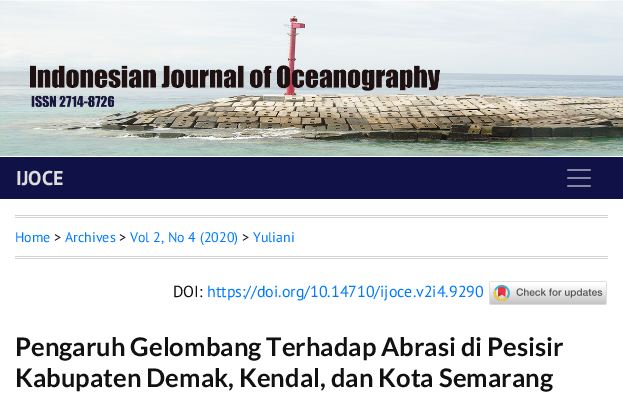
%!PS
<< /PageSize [623 404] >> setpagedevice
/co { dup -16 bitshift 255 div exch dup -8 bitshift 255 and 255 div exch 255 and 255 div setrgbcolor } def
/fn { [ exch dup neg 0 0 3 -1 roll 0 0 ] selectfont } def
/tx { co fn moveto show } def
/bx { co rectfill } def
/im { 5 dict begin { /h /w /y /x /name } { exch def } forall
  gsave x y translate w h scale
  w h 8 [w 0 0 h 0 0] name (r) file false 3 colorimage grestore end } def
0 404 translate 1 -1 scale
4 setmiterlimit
0 0 623 404 16#FFFFFF bx
(media/1.raw) 0 0 623 156 im
0 157 623 42 16#0F1147 bx
(media/2.raw) 567 169 24 18 im
15 215 593 1 16#D1D3D5 bx
15 217 593 1 16#D1D3D5 bx
15 256 593 1 16#D1D3D5 bx
15 258 593 1 16#D1D3D5 bx
(media/3.raw) 489 281 118 24 im
(IJOCE) 16 185 /PTSans-Bold 20 16#DDDDDD tx
(Home) 15 242 /PTSans-Regular 14 16#007BFF tx
(>) 54 242 /PTSans-Regular 14 16#111111 tx
(Archives) 65 242 /PTSans-Regular 14 16#007BFF tx
(>) 119 242 /PTSans-Regular 14 16#111111 tx
(Vol 2, No 4 \(2020\)) 130 242 /PTSans-Regular 14 16#007BFF tx
(>) 242 242 /PTSans-Regular 14 16#111111 tx
(Yuliani) 253 242 /PTSans-Regular 14 16#007BFF tx
(DOI:) 173 297 /PTSans-Regular 16 16#111111 tx
(https://doi.org/10.14710/ijoce.v2i4.9290) 207 297 /PTSans-Regular 16 16#007BFF tx
(Pengaruh Gelombang Terhadap Abrasi di Pesisir) 15 356 /Lato-Bold 25.6 16#111111 tx
(Kabupaten Demak, Kendal, dan Kota Semarang) 15 387 /Lato-Bold 25.6 16#111111 tx
showpage
